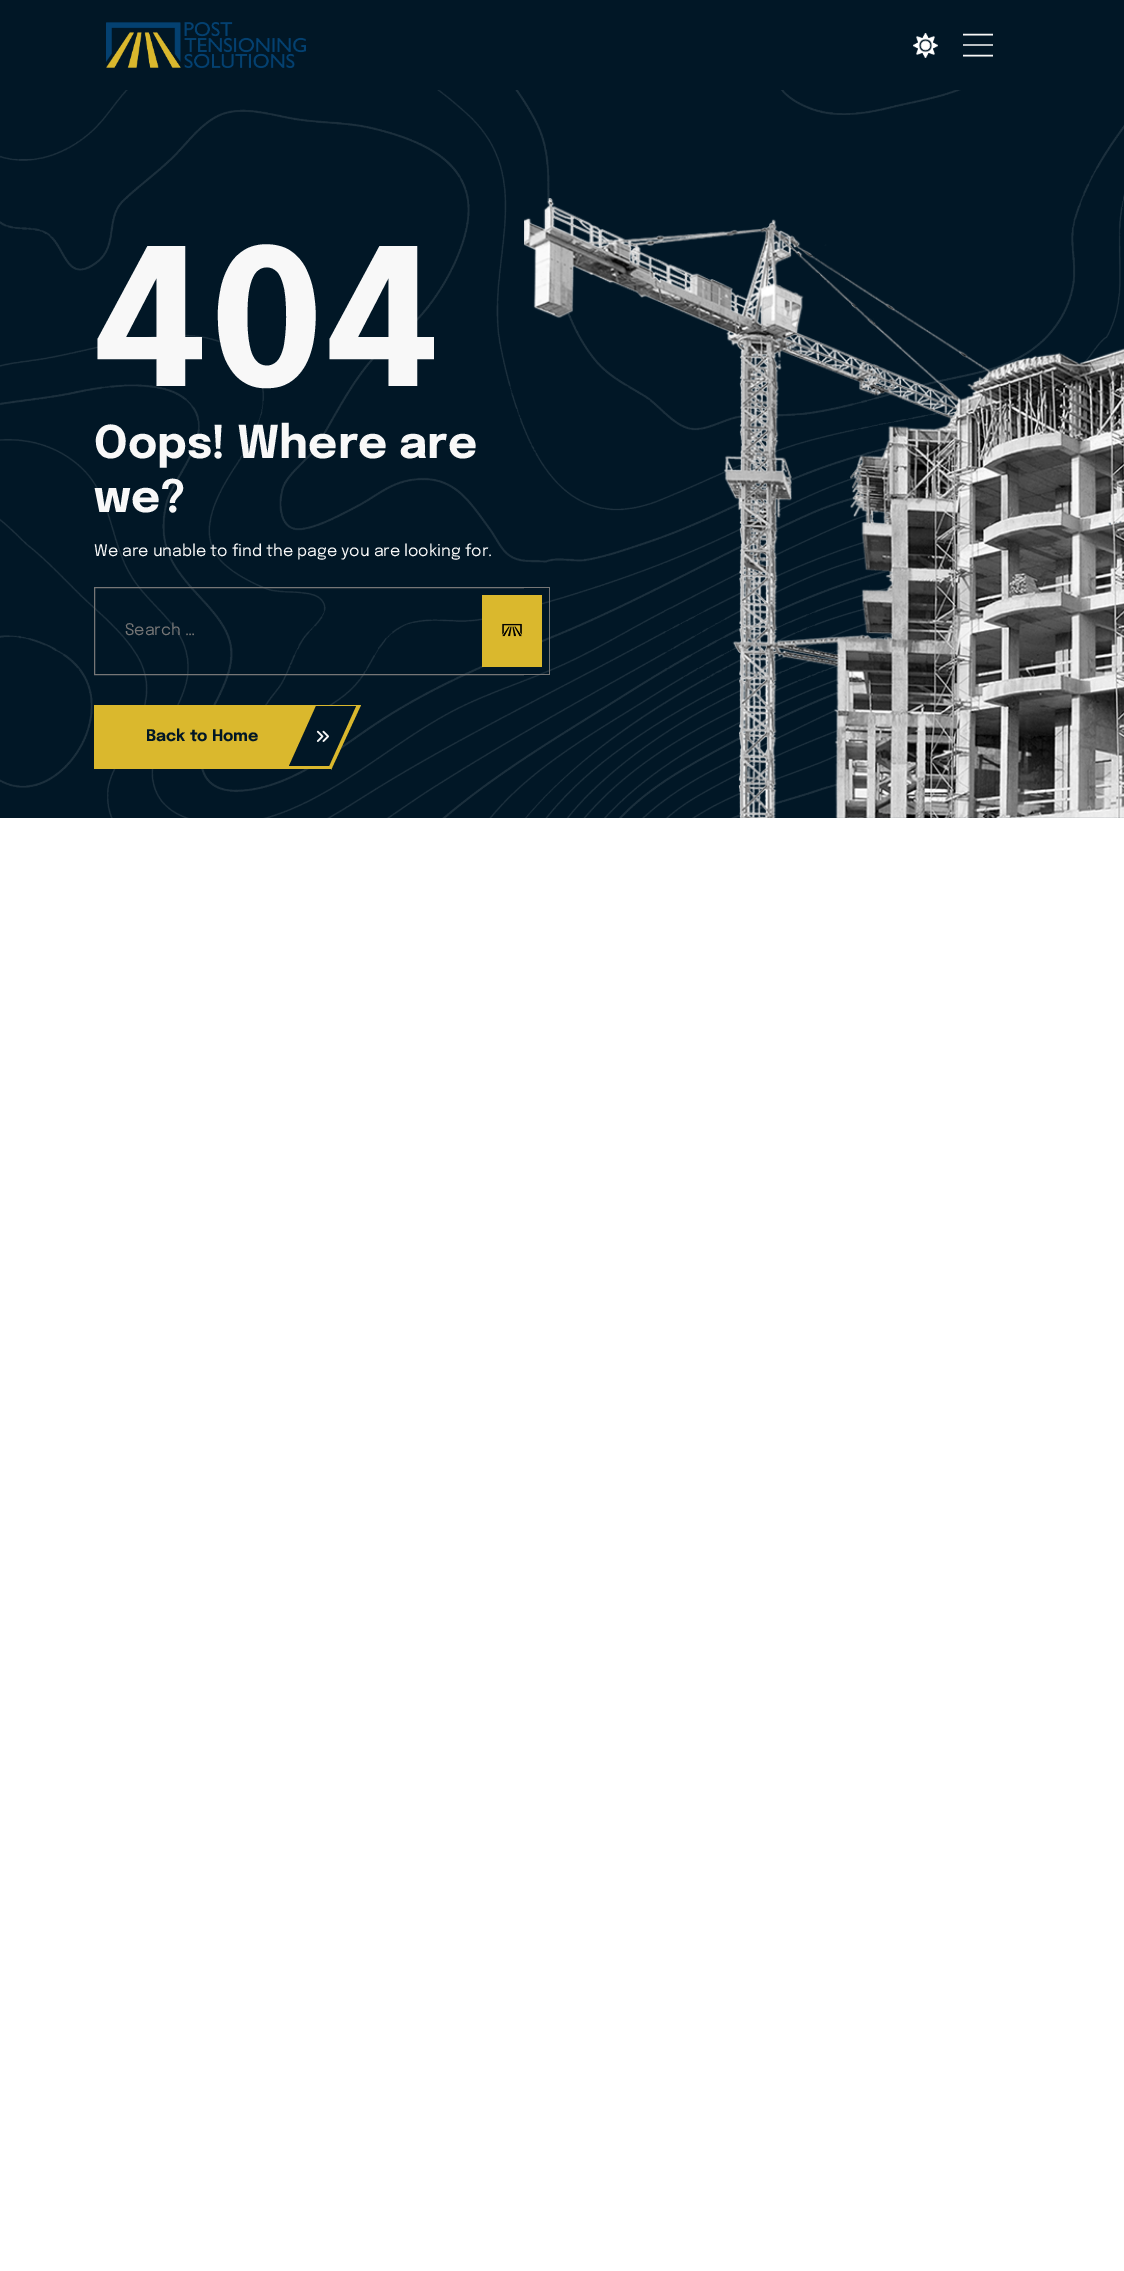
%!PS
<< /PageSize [1124 2271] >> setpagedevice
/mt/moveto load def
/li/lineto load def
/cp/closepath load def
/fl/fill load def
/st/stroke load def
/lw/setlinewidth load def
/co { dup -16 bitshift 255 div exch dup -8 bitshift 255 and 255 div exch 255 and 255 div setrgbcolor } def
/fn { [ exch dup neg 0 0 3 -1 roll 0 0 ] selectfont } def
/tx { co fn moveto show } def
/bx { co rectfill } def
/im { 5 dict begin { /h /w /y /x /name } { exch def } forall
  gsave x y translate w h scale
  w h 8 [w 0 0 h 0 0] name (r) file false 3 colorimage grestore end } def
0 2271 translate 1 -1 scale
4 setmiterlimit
0 0 1124 2271 16#FFFFFF bx
0 0 1124 818 16#011726 bx
(media/1.raw) 106 22 200 46 im
(media/2.raw) 913 33 25 25 im
16#F8F8F8 co
1.5 lw
963 34.5 mt 993 34.5 li st
963 44 30 2 16#BAC0C4 bx
16#F8F8F8 co
963 55.5 mt 993 55.5 li st
(media/3.raw) 0 90 1124 728 im
16#767676 co
1 lw
94.5 587.5 455 87 rectstroke
482 595 60 72 16#DAB82D bx
(media/4.raw) 502 623 20 14 im
94 705 237 64 16#DAB82D bx
331 705 mt 361 705 li 331 770 li cp fl
16#011726 co
316 706 mt 356 706 li 329 766 li 289 766 li cp fl
(media/5.raw) 316 730 13 12 im
(media/6.raw) 524 198 600 620 im
/Epilogue-Bold 190 fn
16#F8F8F8 co
94 386 mt 2 0 (404) ashow
(Oops! Where are) 94 458 /Epilogue-Bold 45 16#F8F8F8 tx
(we?) 94 512 /Epilogue-Bold 45 16#F8F8F8 tx
(We are unable to find the page you are looking for.) 94 556 /Epilogue-Regular 16 16#F8F8F8 tx
(Search …) 125 635 /Epilogue-Regular 16 16#757575 tx
(Back to Home) 146 741 /Epilogue-Bold 16 16#011726 tx
showpage
